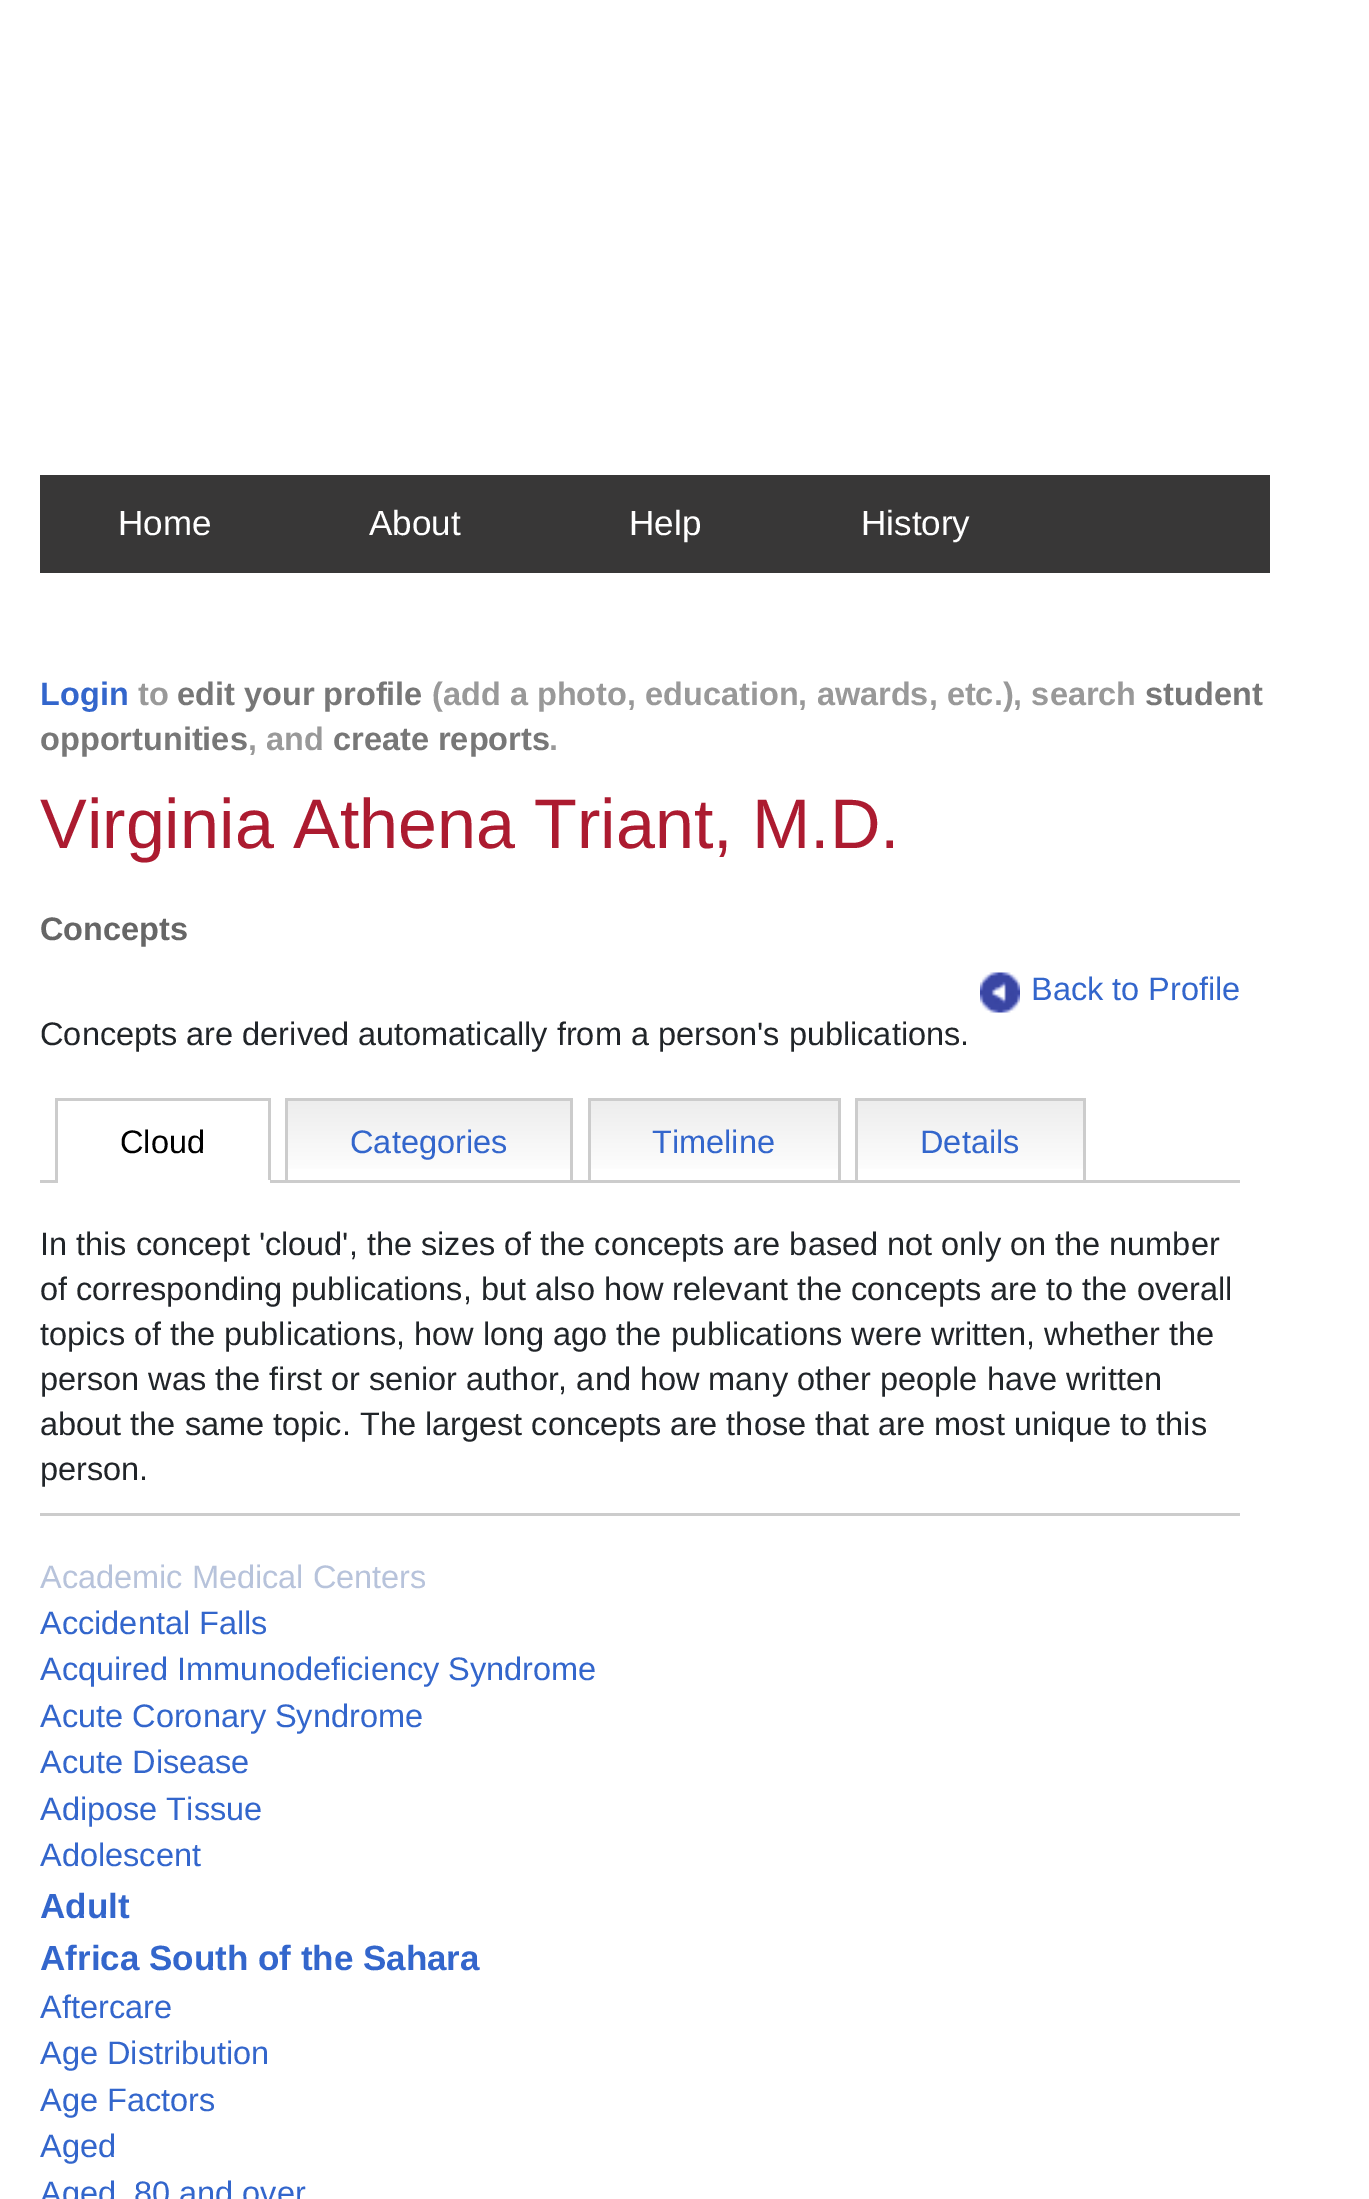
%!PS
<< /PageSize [1369 2199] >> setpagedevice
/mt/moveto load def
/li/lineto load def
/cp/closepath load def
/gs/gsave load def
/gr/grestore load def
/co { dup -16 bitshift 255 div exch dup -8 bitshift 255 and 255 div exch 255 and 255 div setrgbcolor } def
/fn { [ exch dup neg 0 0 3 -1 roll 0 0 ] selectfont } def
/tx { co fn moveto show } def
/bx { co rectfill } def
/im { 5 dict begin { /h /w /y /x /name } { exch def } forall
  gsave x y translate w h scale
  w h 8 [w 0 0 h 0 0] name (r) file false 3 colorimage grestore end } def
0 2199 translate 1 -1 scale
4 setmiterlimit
0 0 1369 2199 16#FFFFFF bx
40 475 1230 98 16#383737 bx
(media/1.raw) 980 972 40 41 im
40 1180 1200 3 16#CCCCCC bx
55 1098 215 3 16#CCCCCC bx
268 1098 3 85 16#CCCCCC bx
55 1180 215 3 16#FFFFFF bx
55 1098 3 85 16#CCCCCC bx
gs 288 1101 mt 570 1101 li 570 1169 li 288 1169 li cp clip newpath
<< /ShadingType 2 /ColorSpace /DeviceRGB /Coords [429 1100 429 1180] /Extend [true true] /Function << /FunctionType 2 /Domain [0 1] /C0 [.929 .929 .929] /C1 [1 1 1] /N 1 >> >> shfill gr
285 1098 288 3 16#CCCCCC bx
570 1098 3 82 16#CCCCCC bx
285 1098 3 82 16#CCCCCC bx
gs 591 1101 mt 838 1101 li 838 1169 li 591 1169 li cp clip newpath
<< /ShadingType 2 /ColorSpace /DeviceRGB /Coords [714 1100 714 1180] /Extend [true true] /Function << /FunctionType 2 /Domain [0 1] /C0 [.929 .929 .929] /C1 [1 1 1] /N 1 >> >> shfill gr
588 1098 252 3 16#CCCCCC bx
838 1098 3 82 16#CCCCCC bx
588 1098 3 82 16#CCCCCC bx
gs 858 1101 mt 1083 1101 li 1083 1169 li 858 1169 li cp clip newpath
<< /ShadingType 2 /ColorSpace /DeviceRGB /Coords [970 1100 970 1180] /Extend [true true] /Function << /FunctionType 2 /Domain [0 1] /C0 [.929 .929 .929] /C1 [1 1 1] /N 1 >> >> shfill gr
855 1098 230 3 16#CCCCCC bx
1083 1098 3 82 16#CCCCCC bx
855 1098 3 82 16#CCCCCC bx
40 1513 1200 3 16#CCCCCC bx
(Home) 118 535 /LiberationSans-Regular 35 16#FFFFFF tx
(About) 369 535 /LiberationSans-Regular 35 16#FFFFFF tx
(Help) 629 535 /LiberationSans-Regular 35 16#FFFFFF tx
(History) 861 535 /LiberationSans-Regular 35 16#FFFFFF tx
(Login) 40 705 /LiberationSans-Bold 32.5 16#3366CC tx
(to) 138 705 /LiberationSans-Bold 32.5 16#999999 tx
(edit your profile) 177 705 /LiberationSans-Bold 32.5 16#777777 tx
(\(add a photo, education, awards, etc.\), search) 432 705 /LiberationSans-Bold 32.5 16#999999 tx
(student) 1145 705 /LiberationSans-Bold 32.5 16#777777 tx
(opportunities) 40 750 /LiberationSans-Bold 32.5 16#777777 tx
(, and) 248 750 /LiberationSans-Bold 32.5 16#999999 tx
(create reports) 333 750 /LiberationSans-Bold 32.5 16#777777 tx
(.) 549 750 /LiberationSans-Bold 32.5 16#999999 tx
(Virginia Athena Triant, M.D.) 40 848 /LiberationSans-Regular 70 16#AC1B30 tx
(Concepts) 40 940 /LiberationSans-Bold 32.5 16#666666 tx
(Back to Profile) 1031 1000 /LiberationSans-Regular 32.5 16#3366CC tx
(Concepts are derived automatically from a person's publications.) 40 1045 /LiberationSans-Regular 32.5 16#212529 tx
(Cloud) 120 1153 /LiberationSans-Regular 32.5 16#000000 tx
(Categories) 350 1153 /LiberationSans-Regular 32.5 16#3366CC tx
(Timeline) 652 1153 /LiberationSans-Regular 32.5 16#3366CC tx
(Details) 920 1153 /LiberationSans-Regular 32.5 16#3366CC tx
(In this concept 'cloud', the sizes of the concepts are based not only on the number) 40 1255 /LiberationSans-Regular 32.5 16#212529 tx
(of corresponding publications, but also how relevant the concepts are to the overall) 40 1300 /LiberationSans-Regular 32.5 16#212529 tx
(topics of the publications, how long ago the publications were written, whether the) 40 1345 /LiberationSans-Regular 32.5 16#212529 tx
(person was the first or senior author, and how many other people have written) 40 1390 /LiberationSans-Regular 32.5 16#212529 tx
(about the same topic. The largest concepts are those that are most unique to this) 40 1435 /LiberationSans-Regular 32.5 16#212529 tx
(person.) 40 1480 /LiberationSans-Regular 32.5 16#212529 tx
(Academic Medical Centers) 40 1588 /LiberationSans-Regular 32.5 16#B7C3DB tx
(Accidental Falls) 40 1634 /LiberationSans-Regular 32.5 16#3366CC tx
(Acquired Immunodeficiency Syndrome) 40 1680 /LiberationSans-Regular 32.5 16#3366CC tx
(Acute Coronary Syndrome) 40 1727 /LiberationSans-Regular 32.5 16#3366CC tx
(Acute Disease) 40 1773 /LiberationSans-Regular 32.5 16#3366CC tx
(Adipose Tissue) 40 1820 /LiberationSans-Regular 32.5 16#3366CC tx
(Adolescent) 40 1866 /LiberationSans-Regular 32.5 16#3366CC tx
(Adult) 40 1918 /LiberationSans-Bold 35 16#3366CC tx
(Africa South of the Sahara) 40 1970 /LiberationSans-Bold 35 16#3366CC tx
(Aftercare) 40 2018 /LiberationSans-Regular 32.5 16#3366CC tx
(Age Distribution) 40 2064 /LiberationSans-Regular 32.5 16#3366CC tx
(Age Factors) 40 2111 /LiberationSans-Regular 32.5 16#3366CC tx
(Aged) 40 2157 /LiberationSans-Regular 32.5 16#3366CC tx
(Aged, 80 and over) 40 2204 /LiberationSans-Regular 32.5 16#3366CC tx
showpage
